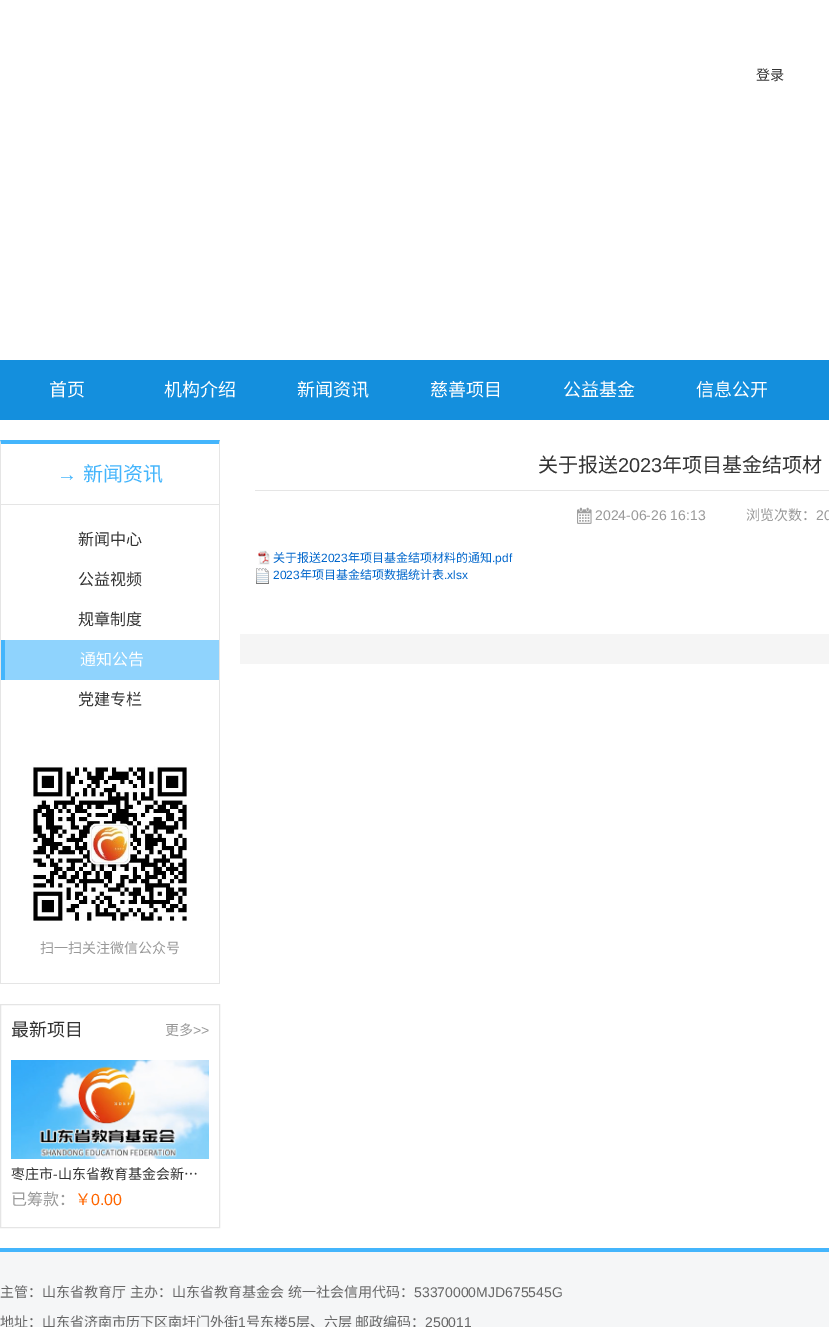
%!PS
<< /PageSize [829 1327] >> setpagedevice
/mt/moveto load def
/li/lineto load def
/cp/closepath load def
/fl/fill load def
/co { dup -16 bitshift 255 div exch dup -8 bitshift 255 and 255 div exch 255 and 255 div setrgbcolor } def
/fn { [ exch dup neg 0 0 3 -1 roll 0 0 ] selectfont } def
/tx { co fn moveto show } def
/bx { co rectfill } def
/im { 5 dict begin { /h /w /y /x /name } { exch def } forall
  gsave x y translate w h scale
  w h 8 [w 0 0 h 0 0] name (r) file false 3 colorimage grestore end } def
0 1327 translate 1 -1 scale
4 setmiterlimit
0 0 829 1327 16#FFFFFF bx
0 360 829 60 16#148FDD bx
16#44B5FC co
0 440 mt 220 440 li 219 444 li 1 444 li cp fl
16#E5E5E5 co
220 440 mt 220 984 li 219 983 li 219 444 li cp fl
0 983 220 1 16#E5E5E5 bx
0 984 mt 0 440 li 1 444 li 1 983 li cp fl
1 504 218 1 16#E5E5E5 bx
5 640 214 40 16#8FD3FD bx
1 640 4 40 16#44B5FC bx
(media/1.raw) 31 766 156 155 im
16#E5E5E5 co
.5 1004.5 219 223 rectstroke
(media/2.raw) 11 1060 198 99 im
255 490 574 1 16#E5E5E5 bx
(media/3.raw) 577 507 15 17 im
(media/4.raw) 258 550 12 15 im
(media/5.raw) 256 568 13 16 im
240 634 589 30 16#F5F5F5 bx
0 1252 829 75 16#F5F6F7 bx
0 1248 829 4 16#44B5FC bx
(登录) 756 80 /NotoSansCJKSC-Regular 14 16#333333 tx
(首页) 49 396 /NotoSansCJKSC-Regular 18 16#FFFFFF tx
(机构介绍) 164 396 /NotoSansCJKSC-Regular 18 16#FFFFFF tx
(新闻资讯) 297 396 /NotoSansCJKSC-Regular 18 16#FFFFFF tx
(慈善项目) 430 396 /NotoSansCJKSC-Regular 18 16#FFFFFF tx
(公益基金) 563 396 /NotoSansCJKSC-Regular 18 16#FFFFFF tx
(信息公开) 696 396 /NotoSansCJKSC-Regular 18 16#FFFFFF tx
(→) 57 481 /LiberationSans-Regular 20 16#44B5FC tx
(新闻资讯) 83 481 /NotoSansCJKSC-Regular 20 16#44B5FC tx
(新闻中心) 78 545 /NotoSansCJKSC-Regular 16 16#333333 tx
(公益视频) 78 585 /NotoSansCJKSC-Regular 16 16#333333 tx
(规章制度) 78 625 /NotoSansCJKSC-Regular 16 16#333333 tx
(通知公告) 80 665 /NotoSansCJKSC-Regular 16 16#FFFFFF tx
(党建专栏) 78 705 /NotoSansCJKSC-Regular 16 16#333333 tx
(扫一扫关注微信公众号) 40 953 /NotoSansCJKSC-Regular 14 16#999999 tx
(最新项目) 11 1036 /NotoSansCJKSC-Regular 18 16#333333 tx
(更多) 165 1035 /NotoSansCJKSC-Regular 14 16#999999 tx
(>>) 193 1035 /LiberationSans-Regular 14 16#999999 tx
(枣庄市) 11 1179 /NotoSansCJKSC-Regular 14 16#333333 tx
(-) 53 1179 /LiberationSans-Regular 14 16#333333 tx
(山东省教育基金会新…) 58 1179 /NotoSansCJKSC-Regular 14 16#333333 tx
(已筹款：) 11 1205 /NotoSansCJKSC-Regular 16 16#999999 tx
(￥) 75 1205 /NotoSansCJKSC-Regular 16 16#FF6600 tx
(0.00) 91 1205 /LiberationSans-Regular 16 16#FF6600 tx
(关于报送) 538 472 /NotoSansCJKSC-Regular 20 16#333333 tx
(2023) 618 472 /LiberationSans-Regular 20 16#333333 tx
(年项目基金结项材) 662 472 /NotoSansCJKSC-Regular 20 16#333333 tx
(2024-06-26 16:13) 595 520 /LiberationSans-Regular 14 16#999999 tx
(浏览次数：) 746 520 /NotoSansCJKSC-Regular 14 16#999999 tx
(20) 816 520 /LiberationSans-Regular 14 16#999999 tx
(关于报送) 273 562 /NotoSansCJKSC-Regular 12 16#0066CC tx
(2023) 321 562 /LiberationSans-Regular 12 16#0066CC tx
(年项目基金结项材料的通知) 348 562 /NotoSansCJKSC-Regular 12 16#0066CC tx
(.pdf) 492 562 /LiberationSans-Regular 12 16#0066CC tx
(2023) 273 579 /LiberationSans-Regular 12 16#0066CC tx
(年项目基金结项数据统计表) 300 579 /NotoSansCJKSC-Regular 12 16#0066CC tx
(.xlsx) 444 579 /LiberationSans-Regular 12 16#0066CC tx
(主管：山东省教育厅) 0 1297 /NotoSansCJKSC-Regular 14 16#666666 tx
(主办：山东省教育基金会) 130 1297 /NotoSansCJKSC-Regular 14 16#666666 tx
(统一社会信用代码：) 288 1297 /NotoSansCJKSC-Regular 14 16#666666 tx
(53370000MJD675545G) 414 1297 /LiberationSans-Regular 14 16#666666 tx
(地址：山东省济南市历下区南圩门外街) 0 1327 /NotoSansCJKSC-Regular 14 16#666666 tx
(1) 238 1327 /LiberationSans-Regular 14 16#666666 tx
(号东楼) 246 1327 /NotoSansCJKSC-Regular 14 16#666666 tx
(5) 288 1327 /LiberationSans-Regular 14 16#666666 tx
(层、六层) 296 1327 /NotoSansCJKSC-Regular 14 16#666666 tx
(邮政编码：) 355 1327 /NotoSansCJKSC-Regular 14 16#666666 tx
(250011) 425 1327 /LiberationSans-Regular 14 16#666666 tx
showpage
